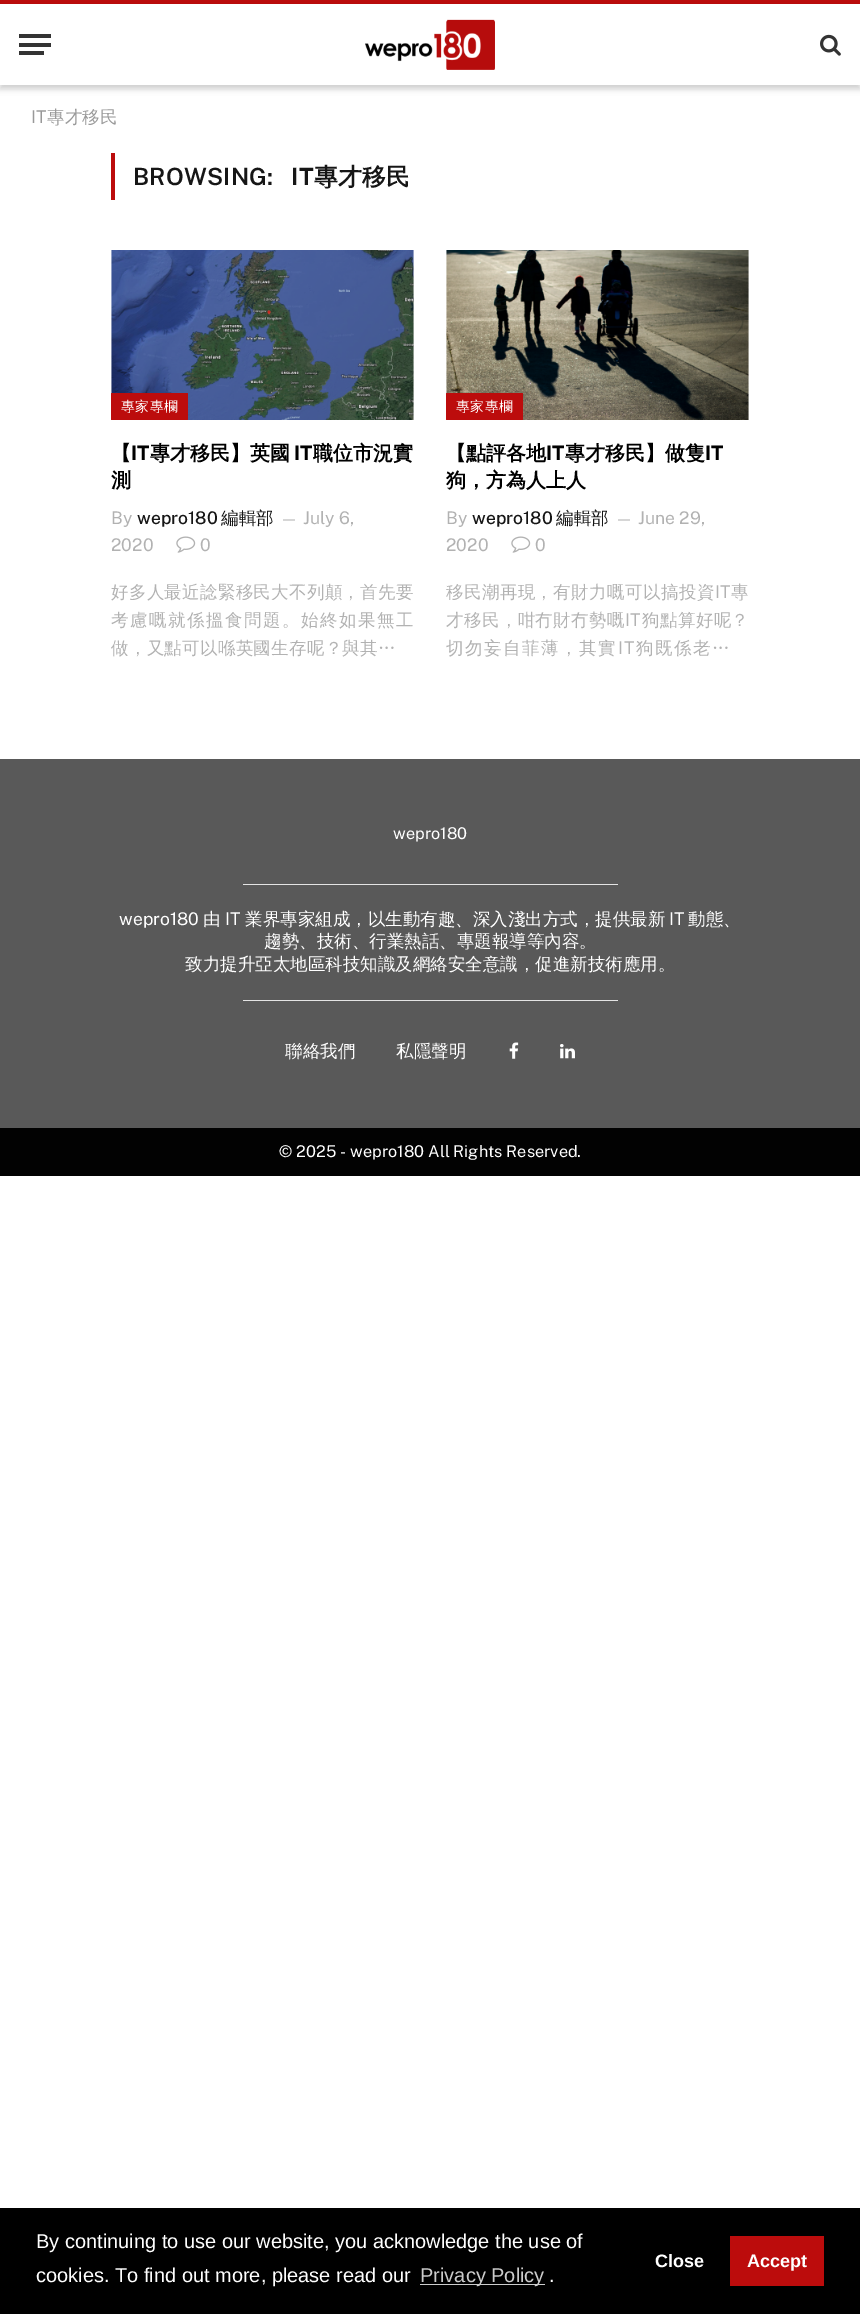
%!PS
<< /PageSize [860 2314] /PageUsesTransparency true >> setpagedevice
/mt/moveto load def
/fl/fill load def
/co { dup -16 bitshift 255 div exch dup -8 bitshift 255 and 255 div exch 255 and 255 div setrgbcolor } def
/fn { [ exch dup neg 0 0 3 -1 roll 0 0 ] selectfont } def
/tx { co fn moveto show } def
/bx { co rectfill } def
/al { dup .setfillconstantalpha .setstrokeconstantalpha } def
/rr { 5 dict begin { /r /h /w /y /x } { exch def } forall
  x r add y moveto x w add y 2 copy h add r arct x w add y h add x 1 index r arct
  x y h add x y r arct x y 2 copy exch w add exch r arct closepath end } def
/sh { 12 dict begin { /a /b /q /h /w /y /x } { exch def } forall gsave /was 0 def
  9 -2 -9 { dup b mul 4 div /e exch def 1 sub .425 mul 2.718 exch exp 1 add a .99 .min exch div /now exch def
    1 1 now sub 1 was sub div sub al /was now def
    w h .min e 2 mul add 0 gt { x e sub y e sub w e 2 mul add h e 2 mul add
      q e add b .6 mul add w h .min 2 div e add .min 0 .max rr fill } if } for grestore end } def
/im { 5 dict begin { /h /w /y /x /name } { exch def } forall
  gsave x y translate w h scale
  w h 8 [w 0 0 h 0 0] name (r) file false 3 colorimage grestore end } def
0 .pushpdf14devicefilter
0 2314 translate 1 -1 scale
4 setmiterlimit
0 0 860 2314 16#FFFFFF bx
0 0 860 4 16#BC0C0C bx
16#000000 co
0 8 860 81 0 3 .1 sh
0 8 860 81 0 3 .1 sh
0 4 860 81 16#FFFFFF bx
19 51 25 4 16#333333 bx
19 34 32 4 16#333333 bx
19 43 32 4 16#333333 bx
(media/1.raw) 365 19 130 51 im
(media/2.raw) 820 34 21 22 im
111 153 4 47 16#BC0C0C bx
(media/3.raw) 111 250 303 170 im
111 393 77 27 1 rr fl
(media/4.raw) 176 536 20 17 im
(media/5.raw) 446 250 303 170 im
446 393 77 27 1 rr fl
(media/4.raw) 511 536 20 17 im
0 759 860 369 16#595959 bx
243 884 375 1 16#E4E4E4 bx
243 1000 375 1 16#E4E4E4 bx
(media/6.raw) 509 1042 10 17 im
(media/7.raw) 560 1044 15 15 im
0 1128 860 48 16#020202 bx
0 2208 860 106 16#000000 bx
420 2284 125 1 16#CCCCCC bx
730 2236 94 50 16#BC0C0C bx
(IT) 31 123 /PublicSans-Regular 17.5 16#999999 tx
(專才移民) 47 123 /WenQuanYiZenHei-Medium 17.5 16#999999 tx
/PublicSans-SemiBold 23.75 fn
16#161616 co
133 185 mt .25 0 (BROWSING:) ashow
/PublicSans-Bold 23.75 fn
291 185 mt .25 0 (IT) ashow
/WenQuanYiZenHei-Bold 23.75 fn
314 185 mt .25 0 (專才移民) ashow
/WenQuanYiZenHei-Medium 13.75 fn
16#FFFFFF co
121 411 mt .5 0 (專家專欄) ashow
(【) 111 460 /WenQuanYiZenHei-Bold 20 16#000000 tx
(IT) 131 460 /PublicSans-Bold 20 16#000000 tx
(專才移民】英國) 150 460 /WenQuanYiZenHei-Bold 20 16#000000 tx
(IT) 294 460 /PublicSans-Bold 20 16#000000 tx
(職位市況實) 313 460 /WenQuanYiZenHei-Bold 20 16#000000 tx
(測) 111 487 /WenQuanYiZenHei-Bold 20 16#000000 tx
(By) 111 524 /PublicSans-Regular 17.5 16#B2B2B2 tx
(編輯部) 221 524 /WenQuanYiZenHei-Medium 17.5 16#161616 tx
(—) 280 524 /PublicSans-Regular 16 16#B2B2B2 tx
(July 6,) 303 524 /PublicSans-Regular 17.5 16#B2B2B2 tx
(2020) 111 551 /PublicSans-Regular 17.5 16#B2B2B2 tx
(wepro180) 137 524 /PublicSans-Medium 17.5 16#161616 tx
(0) 200 551 /PublicSans-Regular 17.5 16#B2B2B2 tx
/WenQuanYiZenHei-Medium 17.5 fn
111 598 mt .3 0 (好多人最近諗緊移民大不列顛，首先要) ashow
111 626 mt 1.5 0 (考慮嘅就係搵食問題。始終如果無工) ashow
111 654 mt .3 0 (做，又點可以喺英國生存呢？與其…) ashow
/WenQuanYiZenHei-Medium 13.75 fn
16#FFFFFF co
456 411 mt .5 0 (專家專欄) ashow
(【點評各地) 446 460 /WenQuanYiZenHei-Bold 20 16#000000 tx
(IT) 546 460 /PublicSans-Bold 20 16#000000 tx
(專才移民】做隻) 565 460 /WenQuanYiZenHei-Bold 20 16#000000 tx
(IT) 705 460 /PublicSans-Bold 20 16#000000 tx
(狗，方為人上人) 446 487 /WenQuanYiZenHei-Bold 20 16#000000 tx
(By) 446 524 /PublicSans-Regular 17.5 16#B2B2B2 tx
(編輯部) 556 524 /WenQuanYiZenHei-Medium 17.5 16#161616 tx
(—) 615 524 /PublicSans-Regular 16 16#B2B2B2 tx
(June 29,) 638 524 /PublicSans-Regular 17.5 16#B2B2B2 tx
(2020) 446 551 /PublicSans-Regular 17.5 16#B2B2B2 tx
(wepro180) 472 524 /PublicSans-Medium 17.5 16#161616 tx
(0) 535 551 /PublicSans-Regular 17.5 16#B2B2B2 tx
/WenQuanYiZenHei-Medium 17.5 fn
446 598 mt .4 0 (移民潮再現，有財力嘅可以搞投資) ashow
/PublicSans-Regular 17.5 fn
715 598 mt .4 0 (IT) ashow
/WenQuanYiZenHei-Medium 17.5 fn
731 598 mt .4 0 (專) ashow
446 626 mt .4 0 (才移民，咁冇財冇勢嘅) ashow
/PublicSans-Regular 17.5 fn
625 626 mt .4 0 (IT) ashow
/WenQuanYiZenHei-Medium 17.5 fn
642 626 mt .4 0 (狗點算好呢？) ashow
446 654 mt 1.5 0 (切勿妄自菲薄，其實) ashow
/PublicSans-Regular 17.5 fn
618 654 mt 1.5 0 (IT) ashow
/WenQuanYiZenHei-Medium 17.5 fn
636 654 mt 1.5 0 (狗既係老…) ashow
(wepro180) 393 839 /PublicSans-Regular 16.25 16#FFFFFF tx
(wepro180) 119 925 /PublicSans-Regular 17.5 16#FFFFFF tx
(由) 203 925 /WenQuanYiZenHei-Medium 17.5 16#FFFFFF tx
(IT) 225 925 /PublicSans-Regular 17.5 16#FFFFFF tx
(業界專家組成，以生動有趣、深入淺出方式，提供最新) 245 925 /WenQuanYiZenHei-Medium 17.5 16#FFFFFF tx
(IT) 669 925 /PublicSans-Regular 17.5 16#FFFFFF tx
(動態、) 688 925 /WenQuanYiZenHei-Medium 17.5 16#FFFFFF tx
(趨勢、技術、行業熱話、專題報導等內容。) 264 947 /WenQuanYiZenHei-Medium 17.5 16#FFFFFF tx
(致力提升亞太地區科技知識及網絡安全意識，促進新技術應用。) 185 970 /WenQuanYiZenHei-Medium 17.5 16#FFFFFF tx
(聯絡我們) 285 1057 /WenQuanYiZenHei-Medium 17.5 16#FFFFFF tx
(私隱聲明) 396 1057 /WenQuanYiZenHei-Medium 17.5 16#FFFFFF tx
(© 2025 - wepro180 All Rights Reserved.) 279 1157 /PublicSans-Regular 16.25 16#FFFFFF tx
(By continuing to use our website, you acknowledge the use of) 36 2248 /LiberationSans-Regular 20 16#FFFFFF tx
(cookies. To find out more, please read our) 36 2282 /LiberationSans-Regular 20 16#FFFFFF tx
(Privacy Policy) 420 2282 /LiberationSans-Regular 20 16#CCCCCC tx
(.) 549 2282 /LiberationSans-Regular 20 16#FFFFFF tx
(Close) 655 2267 /LiberationSans-Bold 18 16#FFFFFF tx
(Accept) 747 2267 /LiberationSans-Bold 18 16#FFFFFF tx
.poppdf14devicefilter showpage
